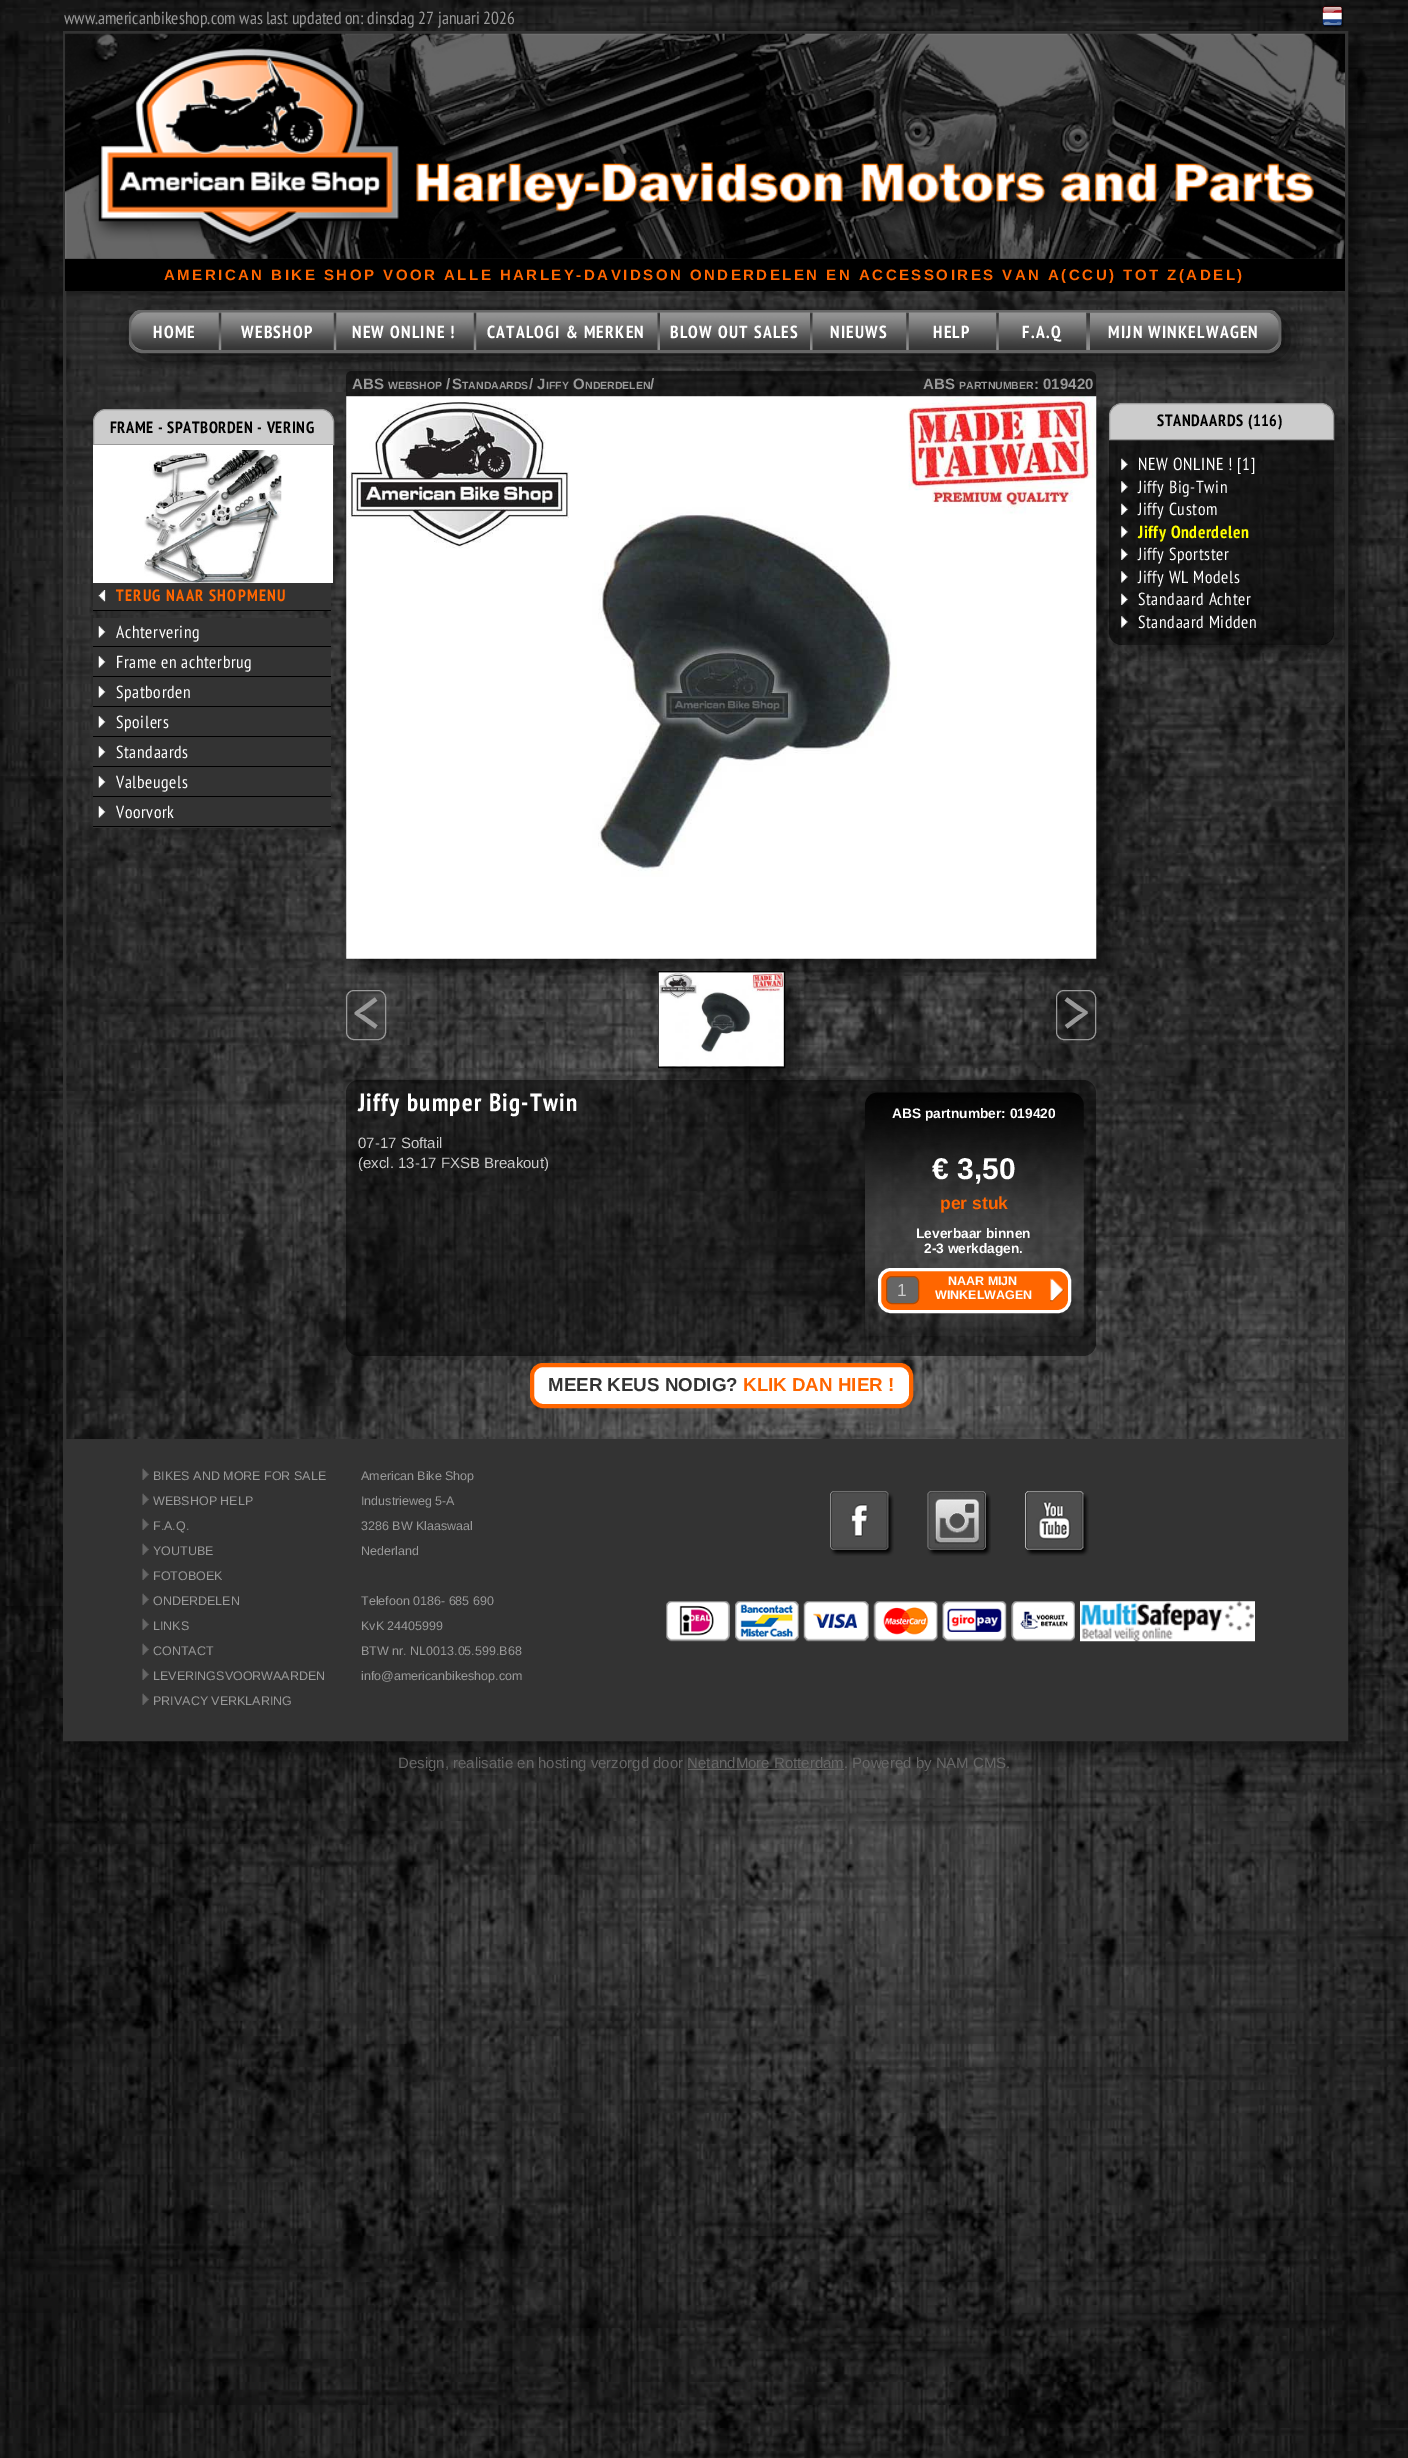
%!PS
<< /PageSize [1408 2458] /PageUsesTransparency true >> setpagedevice
/mt/moveto load def
/li/lineto load def
/ct/curveto load def
/cp/closepath load def
/fl/fill load def
/st/stroke load def
/gs/gsave load def
/gr/grestore load def
/lw/setlinewidth load def
/co { dup -16 bitshift 255 div exch dup -8 bitshift 255 and 255 div exch 255 and 255 div setrgbcolor } def
/fn { [ exch dup neg 0 0 3 -1 roll 0 0 ] selectfont } def
/tx { co fn moveto show } def
/bx { co rectfill } def
/al { dup .setfillconstantalpha .setstrokeconstantalpha } def
/rr { 5 dict begin { /r /h /w /y /x } { exch def } forall
  x r add y moveto x w add y 2 copy h add r arct x w add y h add x 1 index r arct
  x y h add x y r arct x y 2 copy exch w add exch r arct closepath end } def
/sh { 12 dict begin { /a /b /q /h /w /y /x } { exch def } forall gsave /was 0 def
  9 -2 -9 { dup b mul 4 div /e exch def 1 sub .425 mul 2.718 exch exp 1 add a .99 .min exch div /now exch def
    1 1 now sub 1 was sub div sub al /was now def
    w h .min e 2 mul add 0 gt { x e sub y e sub w e 2 mul add h e 2 mul add
      q e add b .6 mul add w h .min 2 div e add .min 0 .max rr fill } if } for grestore end } def
/im { 5 dict begin { /h /w /y /x /name } { exch def } forall
  gsave x y translate w h scale
  w h 8 [w 0 0 h 0 0] name (r) file false 3 colorimage grestore end } def
0 .pushpdf14devicefilter
0 2458 translate 1 -1 scale
4 setmiterlimit
0 0 1408 2458 16#FFFFFF bx
(media/1.raw) 0 0 1408 2458 im
(media/2.raw) 1322 6 22 22 im
688 1769 156 1 16#666666 bx
gs
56 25 mt 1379 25 li 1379 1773 li 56 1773 li cp 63 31 mt 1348 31 li 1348 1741 li 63 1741 li cp eoclip newpath
16#000000 co
75 44 1285 1710 0 6 .5 sh
gr
0.05 al
66 258 1279 1181 16#FFFFFF bx
1 al
16#333333 co
3 lw
64.5 32.5 1282 1707 rectstroke
(media/3.raw) 65 33 1280 226 im
(media/4.raw) 90 43 1237 216 im
65 259 1280 32 16#000000 bx
135 316 1153 43 13 12.5 .75 sh
(media/5.raw) 128 310 1154 43 im
16#666666 co
130.5 311.5 1149 40 11.5 rr st
(media/6.raw) 131 312 88 38 im
(media/7.raw) 221 312 113 38 im
(media/8.raw) 336 312 138 38 im
(media/9.raw) 476 312 182 38 im
(media/10.raw) 660 312 150 38 im
(media/11.raw) 812 312 95 38 im
(media/12.raw) 908 312 89 38 im
(media/13.raw) 998 312 89 38 im
(media/14.raw) 1090 312 189 38 im
16#CCCCCC co
106 409.5 mt 321 409.5 li 328 409.5 333.5 415 333.5 422 ct 333.5 444.5 li 93.5 444.5 li 93.5 422 li 93.5 415 99 409.5 106 409.5 ct cp gs fl gr
16#999999 co
1 lw
st
93 445 240 138 16#FFFFFF bx
(media/15.raw) 144 450 138 133 im
93 583 238 27 16#333333 bx
93 610 238 1 16#000000 bx
(media/16.raw) 98 590 8 12 im
93 618 238 210 16#333333 bx
93 646 238 1 16#000000 bx
(media/17.raw) 98 626 8 12 im
93 676 238 1 16#000000 bx
(media/17.raw) 98 656 8 12 im
93 706 238 1 16#000000 bx
(media/17.raw) 98 686 8 12 im
93 736 238 1 16#000000 bx
(media/17.raw) 98 716 8 12 im
93 766 238 1 16#000000 bx
(media/17.raw) 98 746 8 12 im
93 796 238 1 16#000000 bx
(media/18.raw) 98 776 8 12 im
93 826 238 1 16#000000 bx
(media/17.raw) 98 806 8 12 im
0.5 al
352 371 mt 1090 371 li 1093.5 371 1096 373.5 1096 377 ct 1096 396 li 346 396 li 346 377 li 346 373.5 348.5 371 352 371 ct cp fl
1 al
359 409 750 562 0 6 .5 sh
(media/19.raw) 346 396 751 563 im
0.5 al
346 1080 750 276 13 rr fl
1 al
670 984 128 96 0 6 .5 sh
658.5 971.5 126 96 rectstroke
16#999999 co
346.5 990.5 39 49 7.5 rr st
(media/20.raw) 658 972 126 95 im
1056.5 990.5 39 49 7.5 rr st
(media/21.raw) 865 1092 219 244 im
16#FF6600 co
879.5 1269.5 190 42 11.5 rr gs fl gr
16#FFFFFF co
3 lw
st
16#666666 co
886.5 1276.5 32 27 5.5 rr gs fl gr
16#B64900 co
1 lw
st
(media/22.raw) 1050 1278 14 24 im
16#FFFFFF co
532 1365 379 41 11 rr gs fl gr
16#FF6600 co
4 lw
st
gs
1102 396 mt 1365 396 li 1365 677 li 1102 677 li cp 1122 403 mt 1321 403 li 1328 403 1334 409 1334 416 ct 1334 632 li 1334 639 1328 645 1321 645 ct 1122 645 li 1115 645 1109 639 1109 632 ct 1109 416 li 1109 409 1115 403 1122 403 ct cp eoclip newpath
16#000000 co
1121 415 225 243 13 6 .35 sh
gr
0.6 al
16#000000 co
1109 403 225 242 13 rr fl
1 al
16#CCCCCC co
1122 403.5 mt 1321 403.5 li 1328 403.5 1333.5 409 1333.5 416 ct 1333.5 439.5 li 1109.5 439.5 li 1109.5 416 li 1109.5 409 1115 403.5 1122 403.5 ct cp gs fl gr
16#999999 co
1 lw
st
(media/23.raw) 1121 458 7 12 im
(media/24.raw) 1121 481 7 12 im
(media/25.raw) 1121 503 7 12 im
(media/26.raw) 1121 526 7 12 im
(media/27.raw) 1121 548 7 12 im
(media/28.raw) 1121 571 7 12 im
(media/29.raw) 1121 593 7 12 im
(media/30.raw) 1121 616 7 12 im
66 1439 1279 299 16#333333 bx
(media/31.raw) 142 1468 7 12 im
(media/31.raw) 142 1493 7 12 im
(media/31.raw) 142 1518 7 12 im
(media/31.raw) 142 1543 7 12 im
(media/31.raw) 142 1568 7 12 im
(media/31.raw) 142 1593 7 12 im
(media/31.raw) 142 1618 7 12 im
(media/31.raw) 142 1643 7 12 im
(media/31.raw) 142 1668 7 12 im
(media/31.raw) 142 1693 7 12 im
(media/32.raw) 830 1491 64 65 im
(media/33.raw) 927 1491 64 65 im
(media/34.raw) 1025 1491 64 65 im
(media/35.raw) 666 1601 64 41 im
(media/36.raw) 735 1601 64 41 im
(media/37.raw) 803 1601 66 41 im
(media/38.raw) 873 1601 65 41 im
(media/39.raw) 942 1601 65 41 im
(media/40.raw) 1011 1601 64 41 im
(media/41.raw) 1080 1601 175 41 im
(www.americanbikeshop.com was last updated on: dinsdag 27 januari 2026) 64 24 /PTSansNarrow-Regular 17.5 16#999999 tx
/LiberationSans-Bold 15 fn
16#FF6600 co
164 280 mt 2.5 0 (AMERICAN BIKE SHOP VOOR ALLE HARLEY-DAVIDSON ONDERDELEN EN ACCESSOIRES VAN A\(CCU\) TOT Z\(ADEL\)) ashow
/PTSansNarrow-Bold 17.5 fn
16#FFFFFF co
153 338 mt 1.25 0 (HOME) ashow
241 338 mt 1.25 0 (WEBSHOP) ashow
352 338 mt 1.25 0 (NEW ONLINE !) ashow
487 338 mt 1.25 0 (CATALOGI & MERKEN) ashow
670 338 mt 1.25 0 (BLOW OUT SALES) ashow
830 338 mt 1.25 0 (NIEUWS) ashow
933 338 mt 1.25 0 (HELP) ashow
1022 338 mt 1.25 0 (F.A.Q) ashow
1108 338 mt 1.25 0 (MIJN WINKELWAGEN) ashow
/PTSansNarrow-Bold 16.25 fn
16#000000 co
110 433 mt .6 0 (FRAME - SPATBORDEN - VERING) ashow
16#FF6600 co
116 601 mt 1.25 0 (TERUG NAAR SHOPMENU) ashow
/PTSansNarrow-Regular 17.5 fn
16#FFFFFF co
116 638 mt .6 0 (Achtervering) ashow
116 668 mt .6 0 (Frame en achterbrug) ashow
116 698 mt .6 0 (Spatborden) ashow
116 728 mt .6 0 (Spoilers) ashow
116 758 mt .6 0 (Standaards) ashow
116 788 mt .6 0 (Valbeugels) ashow
116 818 mt .6 0 (Voorvork) ashow
(ABS) 352 389 /LiberationSans-Bold 15 16#999999 tx
(WEBSHOP) 388 389 /LiberationSans-Bold 10.5 16#999999 tx
(/) 446 389 /LiberationSans-Bold 15 16#999999 tx
(S) 452 389 /LiberationSans-Bold 15 16#999999 tx
(TANDAARDS) 462 389 /LiberationSans-Bold 10.5 16#999999 tx
(/ J) 529 389 /LiberationSans-Bold 15 16#999999 tx
(IFFY) 546 389 /LiberationSans-Bold 10.5 16#999999 tx
(O) 573 389 /LiberationSans-Bold 15 16#999999 tx
(NDERDELEN) 585 389 /LiberationSans-Bold 10.5 16#999999 tx
(/) 650 389 /LiberationSans-Bold 15 16#999999 tx
(ABS) 923 389 /LiberationSans-Bold 15 16#999999 tx
(PARTNUMBER) 959 389 /LiberationSans-Bold 10.5 16#999999 tx
(: 019420) 1034 389 /LiberationSans-Bold 15 16#999999 tx
(<) 352 1035 /PTSansNarrow-Regular 68 16#999999 tx
(>) 1062 1035 /PTSansNarrow-Regular 68 16#999999 tx
/PTSansNarrow-Bold 25 fn
16#FFFFFF co
358 1111 mt 1.25 0 (Jiffy bumper Big-Twin) ashow
(07-17 Softail) 358 1148 /LiberationSans-Regular 15 16#CCCCCC tx
(\(excl. 13-17 FXSB Breakout\)) 358 1168 /LiberationSans-Regular 15 16#CCCCCC tx
(ABS partnumber: 019420) 892 1118 /LiberationSans-Bold 13.75 16#FFFFFF tx
(€ 3,50) 932 1179 /LiberationSans-Bold 30 16#FFFFFF tx
(per stuk) 940 1209 /LiberationSans-Bold 17.5 16#FF6600 tx
(Leverbaar binnen) 916 1238 /LiberationSans-Bold 13.75 16#FFFFFF tx
(2-3 werkdagen.) 924 1253 /LiberationSans-Bold 13.75 16#FFFFFF tx
(1) 897 1296 /LiberationSans-Regular 17.5 16#CCCCCC tx
(NAAR MIJN) 948 1285 /LiberationSans-Bold 12.5 16#FFFFFF tx
(WINKELWAGEN) 935 1299 /LiberationSans-Bold 12.5 16#FFFFFF tx
(MEER KEUS NODIG?) 548 1391 /LiberationSans-Bold 18.75 16#333333 tx
(KLIK DAN HIER !) 743 1391 /LiberationSans-Bold 18.75 16#FF6600 tx
/PTSansNarrow-Bold 16.25 fn
16#000000 co
1157 426 mt .6 0 (STANDAARDS \(116\)) ashow
/PTSansNarrow-Regular 17.5 fn
16#FFFFFF co
1138 470 mt .6 0 (NEW ONLINE ! [1]) ashow
1138 493 mt .6 0 (Jiffy Big-Twin) ashow
1138 515 mt .6 0 (Jiffy Custom) ashow
/PTSansNarrow-Bold 17.5 fn
16#FFFF00 co
1138 538 mt .6 0 (Jiffy Onderdelen) ashow
/PTSansNarrow-Regular 17.5 fn
16#FFFFFF co
1138 560 mt .6 0 (Jiffy Sportster) ashow
1138 583 mt .6 0 (Jiffy WL Models) ashow
1138 605 mt .6 0 (Standaard Achter) ashow
1138 628 mt .6 0 (Standaard Midden) ashow
(BIKES AND MORE FOR SALE) 153 1480 /LiberationSans-Regular 12.5 16#999999 tx
(WEBSHOP HELP) 153 1505 /LiberationSans-Regular 12.5 16#999999 tx
(F.A.Q.) 153 1530 /LiberationSans-Regular 12.5 16#999999 tx
(YOUTUBE) 153 1555 /LiberationSans-Regular 12.5 16#999999 tx
(FOTOBOEK) 153 1580 /LiberationSans-Regular 12.5 16#999999 tx
(ONDERDELEN) 153 1605 /LiberationSans-Regular 12.5 16#999999 tx
(LINKS) 153 1630 /LiberationSans-Regular 12.5 16#999999 tx
(CONTACT) 153 1655 /LiberationSans-Regular 12.5 16#999999 tx
(LEVERINGSVOORWAARDEN) 153 1680 /LiberationSans-Regular 12.5 16#999999 tx
(PRIVACY VERKLARING) 153 1705 /LiberationSans-Regular 12.5 16#999999 tx
(American Bike Shop) 361 1480 /LiberationSans-Regular 12.5 16#999999 tx
(Industrieweg 5-A) 361 1505 /LiberationSans-Regular 12.5 16#999999 tx
(3286 BW Klaaswaal) 361 1530 /LiberationSans-Regular 12.5 16#999999 tx
(Nederland) 361 1555 /LiberationSans-Regular 12.5 16#999999 tx
(Telefoon 0186- 685 690) 361 1605 /LiberationSans-Regular 12.5 16#999999 tx
(KvK 24405999) 361 1630 /LiberationSans-Regular 12.5 16#999999 tx
(BTW nr. NL0013.05.599.B68) 361 1655 /LiberationSans-Regular 12.5 16#999999 tx
(info@americanbikeshop.com) 361 1680 /LiberationSans-Regular 12.5 16#999999 tx
(Design, realisatie en hosting verzorgd door NetandMore Rotterdam. Powered by NAM CMS.) 398 1768 /LiberationSans-Regular 15 16#666666 tx
.poppdf14devicefilter showpage
